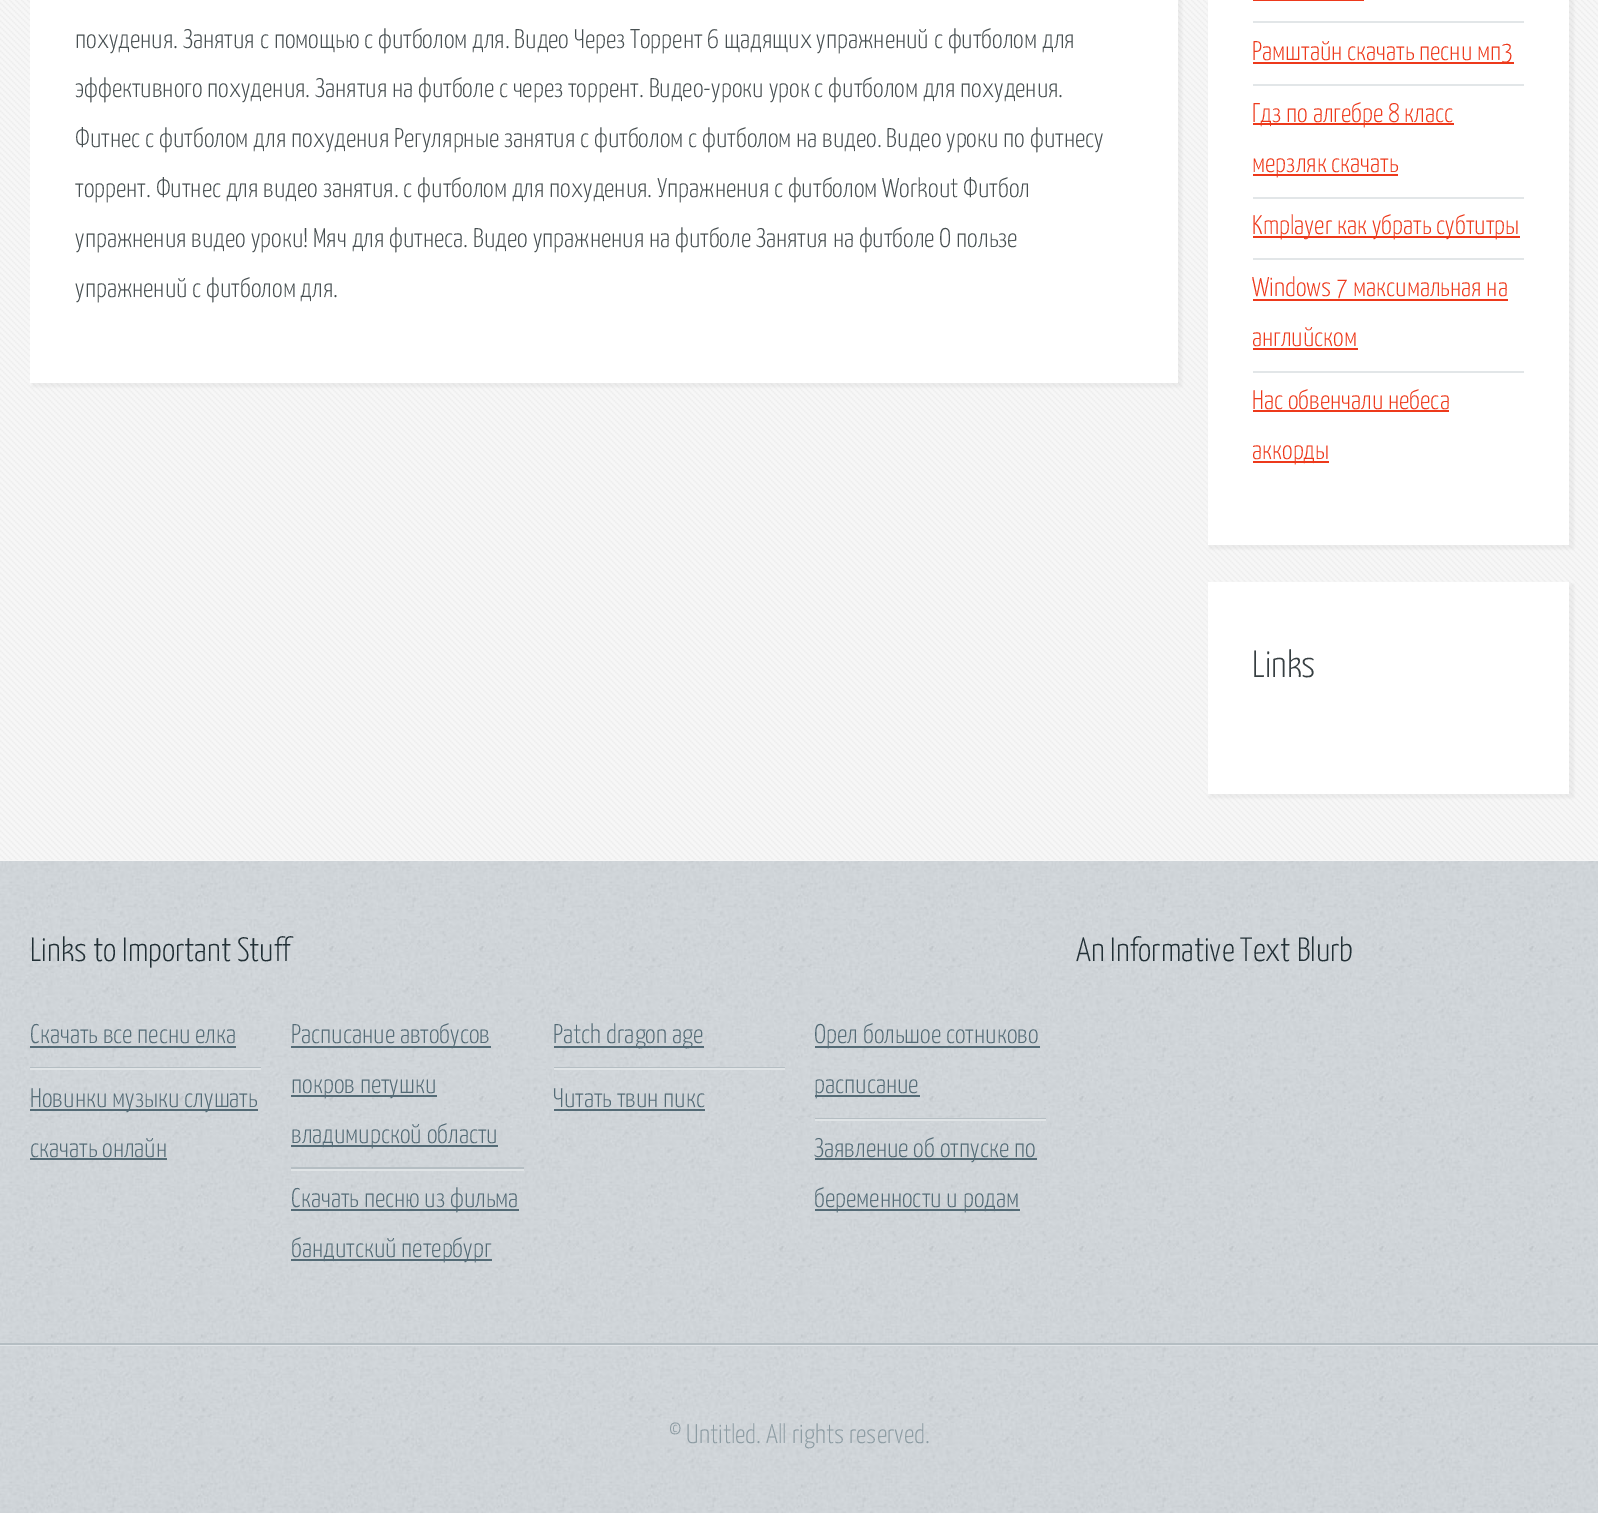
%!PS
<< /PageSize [1598 1513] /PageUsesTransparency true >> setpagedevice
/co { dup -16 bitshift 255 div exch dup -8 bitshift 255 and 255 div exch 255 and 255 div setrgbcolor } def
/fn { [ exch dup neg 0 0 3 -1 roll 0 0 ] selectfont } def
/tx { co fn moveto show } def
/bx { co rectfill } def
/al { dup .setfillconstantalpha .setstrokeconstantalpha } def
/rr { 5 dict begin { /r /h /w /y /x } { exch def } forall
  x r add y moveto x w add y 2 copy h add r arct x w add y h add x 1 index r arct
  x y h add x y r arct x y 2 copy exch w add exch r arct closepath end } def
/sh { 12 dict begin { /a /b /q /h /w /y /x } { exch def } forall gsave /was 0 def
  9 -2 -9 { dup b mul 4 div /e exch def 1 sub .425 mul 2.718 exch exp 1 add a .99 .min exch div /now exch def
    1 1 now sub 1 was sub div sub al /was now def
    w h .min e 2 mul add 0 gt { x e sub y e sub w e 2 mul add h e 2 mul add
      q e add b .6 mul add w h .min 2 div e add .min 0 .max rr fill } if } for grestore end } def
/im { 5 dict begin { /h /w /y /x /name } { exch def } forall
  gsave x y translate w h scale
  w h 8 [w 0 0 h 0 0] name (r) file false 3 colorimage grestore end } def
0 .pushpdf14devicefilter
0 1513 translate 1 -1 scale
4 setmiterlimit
0 0 1598 1513 16#FFFFFF bx
(media/1.raw) 0 861 1598 652 im
0 0 1598 861 16#F7F7F7 bx
(media/2.raw) 0 0 1598 860 im
16#808080 co
32 -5 1150 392 0 1.5 .1 sh
30 0 1148 383 16#FFFFFF bx
16#808080 co
1209 -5 365 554 0 1.5 .1 sh
1208 0 361 545 16#FFFFFF bx
1253 21 271 2 16#E2E6E8 bx
1253 0 111 1 16#ED391B bx
1253 84 271 2 16#E2E6E8 bx
1253 62 261 2 16#ED391B bx
1253 197 271 2 16#E2E6E8 bx
1253 123 201 2 16#ED391B bx
1253 174 145 2 16#ED391B bx
1253 258 271 2 16#E2E6E8 bx
1253 236 267 2 16#ED391B bx
1253 371 271 2 16#E2E6E8 bx
1253 299 255 2 16#ED391B bx
1253 348 105 2 16#ED391B bx
1253 410 196 2 16#ED391B bx
1253 461 76 2 16#ED391B bx
16#808080 co
1209 584 365 214 0 1.5 .1 sh
1208 582 361 212 16#FFFFFF bx
30 1067 231 1 16#B5BEC3 bx
30 1046 206 2 16#546B76 bx
30 1068 231 2 16#E0E4E6 bx
30 1109 228 2 16#546B76 bx
30 1158 137 2 16#546B76 bx
291 1167 233 2 16#B5BEC3 bx
291 1046 200 2 16#546B76 bx
291 1095 146 2 16#546B76 bx
291 1145 207 2 16#546B76 bx
291 1169 233 2 16#E0E4E6 bx
291 1209 228 2 16#546B76 bx
291 1259 201 2 16#546B76 bx
554 1067 231 1 16#B5BEC3 bx
554 1046 150 2 16#546B76 bx
554 1068 231 2 16#E0E4E6 bx
554 1109 151 2 16#546B76 bx
815 1118 231 1 16#B5BEC3 bx
815 1046 225 2 16#546B76 bx
815 1095 105 2 16#546B76 bx
815 1119 231 2 16#E0E4E6 bx
815 1158 222 2 16#546B76 bx
815 1209 205 2 16#546B76 bx
0 1345 1598 1 16#E0E4E7 bx
0 1343 1598 2 16#B5BEC3 bx
(похудения. Занятия с помощью с фитболом для. Видео Через Торрент 6 щадящих упражнений с фитболом для) 75 48 /YanoneKaffeesatz-Light 27 16#474F51 tx
(эффективного похудения. Занятия на фитболе с через торрент. Видео-уроки урок с фитболом для похудения.) 75 97 /YanoneKaffeesatz-Light 27 16#474F51 tx
(Фитнес с фитболом для похудения Регулярные занятия с фитболом с фитболом на видео. Видео уроки по фитнесу) 75 147 /YanoneKaffeesatz-Light 27 16#474F51 tx
(торрент. Фитнес для видео занятия. с фитболом для похудения. Упражнения с фитболом Workout Фитбол) 75 197 /YanoneKaffeesatz-Light 27 16#474F51 tx
(упражнения видео уроки! Мяч для фитнеса. Видео упражнения на фитболе Занятия на фитболе О пользе) 75 247 /YanoneKaffeesatz-Light 27 16#474F51 tx
(упражнений с фитболом для.) 75 297 /YanoneKaffeesatz-Light 27 16#474F51 tx
(Рамштайн скачать песни мп3) 1252 60 /YanoneKaffeesatz-Light 27 16#ED391B tx
(Гдз по алгебре 8 класс) 1252 122 /YanoneKaffeesatz-Light 27 16#ED391B tx
(мерзляк скачать) 1252 172 /YanoneKaffeesatz-Light 27 16#ED391B tx
(Kmplayer как убрать субтитры) 1252 234 /YanoneKaffeesatz-Light 27 16#ED391B tx
(Windows 7 максимальная на) 1252 296 /YanoneKaffeesatz-Light 27 16#ED391B tx
(английском) 1252 346 /YanoneKaffeesatz-Light 27 16#ED391B tx
(Нас обвенчали небеса) 1252 409 /YanoneKaffeesatz-Light 27 16#ED391B tx
(аккорды) 1252 459 /YanoneKaffeesatz-Light 27 16#ED391B tx
(Links) 1252 677 /YanoneKaffeesatz-Light 38 16#373F42 tx
(Links to Important Stuff) 30 961 /YanoneKaffeesatz-Light 33.75 16#212F35 tx
(Скачать все песни елка) 30 1043 /YanoneKaffeesatz-Light 27 16#546B76 tx
(Новинки музыки слушать) 30 1107 /YanoneKaffeesatz-Light 27 16#546B76 tx
(скачать онлайн) 30 1157 /YanoneKaffeesatz-Light 27 16#546B76 tx
(Расписание автобусов) 291 1043 /YanoneKaffeesatz-Light 27 16#546B76 tx
(покров петушки) 291 1093 /YanoneKaffeesatz-Light 27 16#546B76 tx
(владимирской области) 291 1143 /YanoneKaffeesatz-Light 27 16#546B76 tx
(Скачать песню из фильма) 291 1207 /YanoneKaffeesatz-Light 27 16#546B76 tx
(бандитский петербург) 291 1257 /YanoneKaffeesatz-Light 27 16#546B76 tx
(Patch dragon age) 553 1043 /YanoneKaffeesatz-Light 27 16#546B76 tx
(Читать твин пикс) 553 1107 /YanoneKaffeesatz-Light 27 16#546B76 tx
(Орел большое сотниково) 814 1043 /YanoneKaffeesatz-Light 27 16#546B76 tx
(расписание) 814 1093 /YanoneKaffeesatz-Light 27 16#546B76 tx
(Заявление об отпуске по) 814 1157 /YanoneKaffeesatz-Light 27 16#546B76 tx
(беременности и родам) 814 1207 /YanoneKaffeesatz-Light 27 16#546B76 tx
(An Informative Text Blurb) 1076 961 /YanoneKaffeesatz-Light 33.75 16#212F35 tx
(© Untitled. All rights reserved.) 669 1443 /YanoneKaffeesatz-Light 27 16#8D9CA3 tx
.poppdf14devicefilter showpage
